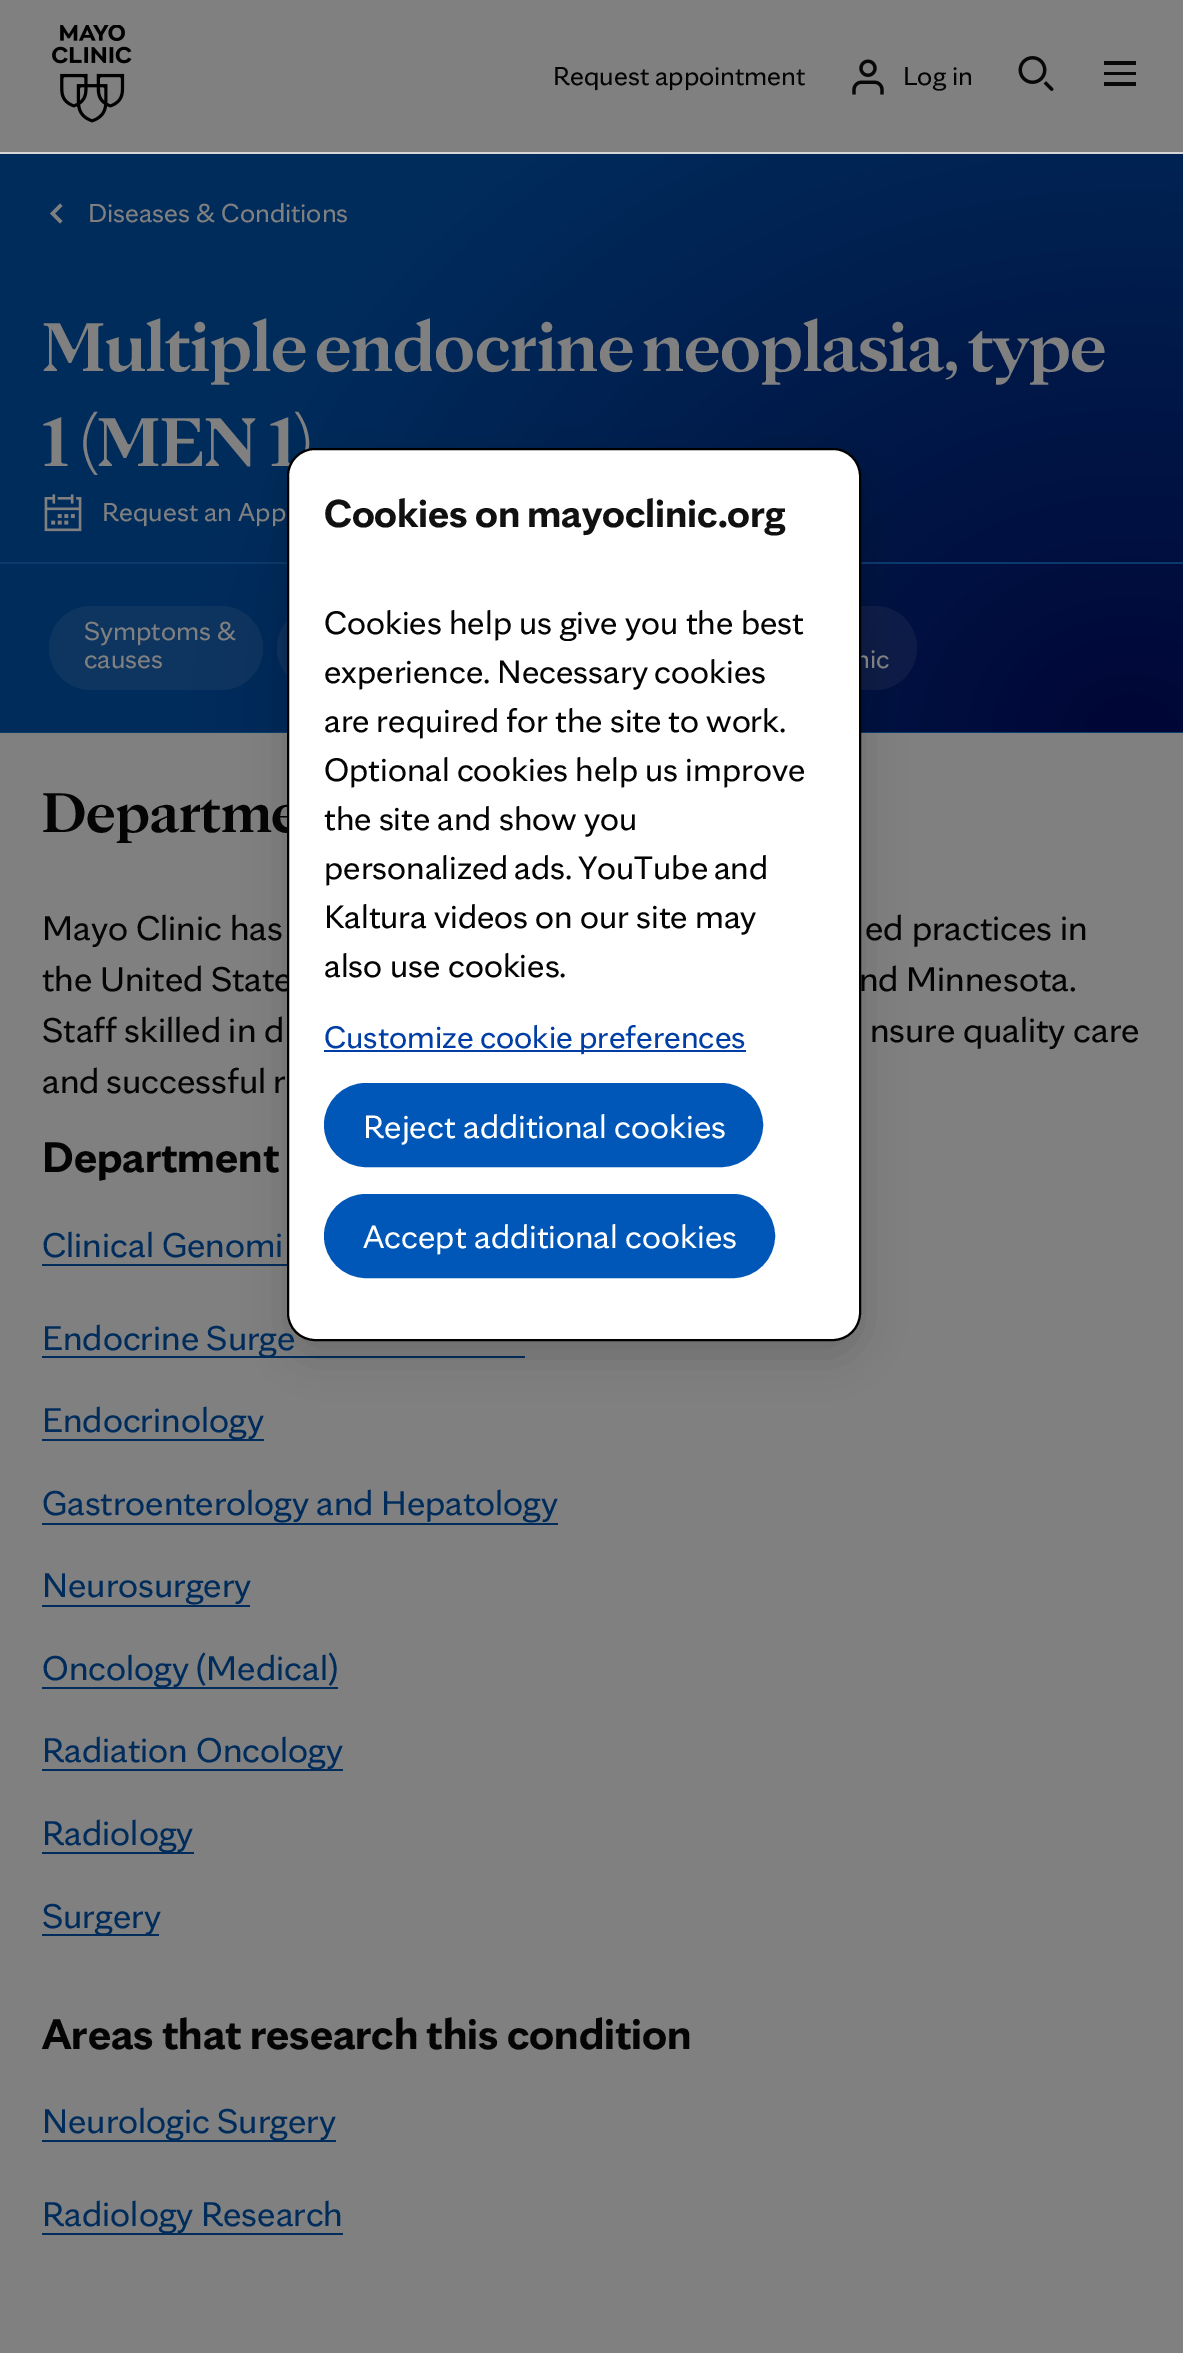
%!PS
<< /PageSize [1183 2353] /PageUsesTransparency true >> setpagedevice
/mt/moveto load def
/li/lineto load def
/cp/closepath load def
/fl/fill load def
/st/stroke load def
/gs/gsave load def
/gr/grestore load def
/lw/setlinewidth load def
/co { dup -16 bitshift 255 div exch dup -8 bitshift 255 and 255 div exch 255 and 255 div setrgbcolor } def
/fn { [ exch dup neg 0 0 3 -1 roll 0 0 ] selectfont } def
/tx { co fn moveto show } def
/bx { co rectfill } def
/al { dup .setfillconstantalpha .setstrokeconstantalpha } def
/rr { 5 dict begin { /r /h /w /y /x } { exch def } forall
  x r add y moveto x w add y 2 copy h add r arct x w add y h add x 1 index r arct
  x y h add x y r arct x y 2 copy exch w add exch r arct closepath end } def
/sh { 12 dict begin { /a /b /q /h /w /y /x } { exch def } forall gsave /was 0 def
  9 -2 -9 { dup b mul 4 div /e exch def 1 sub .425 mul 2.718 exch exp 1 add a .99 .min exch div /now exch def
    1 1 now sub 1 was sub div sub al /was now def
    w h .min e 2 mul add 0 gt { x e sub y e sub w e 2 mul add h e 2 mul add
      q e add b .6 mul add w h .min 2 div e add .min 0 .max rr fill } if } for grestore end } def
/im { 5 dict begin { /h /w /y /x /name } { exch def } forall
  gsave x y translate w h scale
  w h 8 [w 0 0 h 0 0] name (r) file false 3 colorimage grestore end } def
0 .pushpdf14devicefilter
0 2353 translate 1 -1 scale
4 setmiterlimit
0 0 1183 2353 16#808080 bx
0 152 1183 2 16#D6D6D6 bx
(media/1.raw) 52 25 80 98 im
(media/2.raw) 852 59 32 36 im
(media/3.raw) 1018 56 36 35 im
1104 61 32 4 16#080808 bx
1104 72 32 3 16#080808 bx
1104 82 32 4 16#080808 bx
gs 0 154 mt 1183 154 li 1183 732 li 0 732 li cp clip newpath 1132 732 translate 943 775 scale
<< /ShadingType 3 /ColorSpace /DeviceRGB /Coords [0 0 0 0 0 1] /Extend [true true] /Function << /FunctionType 2 /Domain [0 1] /C0 [0 .024 .212] /C1 [0 .173 .361] /N 1 >> >> shfill gr
0 732 1183 1 16#0A396B bx
16#808080 co
60 223.5 mt 50 213.5 li 60 203.5 li 62.5 206 li 55 213.5 li 62.5 221 li cp fl
(media/4.raw) 44 494 38 38 im
0 562 1183 2 16#0A396B bx
0.1 al
16#808080 co
49 606 214 84 42 rr fl
277 606 201 84 42 rr fl
718 606 199 84 42 rr fl
1 al
42 1264 245 2 16#002C5C bx
42 1356 483 2 16#002C5C bx
42 1439 222 2 16#002C5C bx
42 1523 516 2 16#002C5C bx
42 1605 208 2 16#002C5C bx
42 1687 296 2 16#002C5C bx
42 1769 301 2 16#002C5C bx
42 1852 152 2 16#002C5C bx
42 1934 117 2 16#002C5C bx
42 2140 294 2 16#002C5C bx
42 2233 301 2 16#002C5C bx
16#000000 co
287 462 574 893 28 21 .16 sh
(Request appointment) 553 85 /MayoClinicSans-Regular 28 16#040404 tx
(Log in) 903 85 /MayoClinicSans-Regular 28 16#040404 tx
(Diseases & Conditions) 88 222 /MayoClinicSans-Regular 28 16#808080 tx
/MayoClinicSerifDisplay-Bold 74.1 fn
42 371 mt -4 0 32 (Multiple endocrine neoplasia, type) widthshow
(1 \(MEN 1\)) 42 466 /MayoClinicSerifDisplay-Bold 74.1 16#808080 tx
(Request an App) 102 521 /MayoClinicSans-Regular 28 16#808080 tx
(Symptoms &) 84 640 /MayoClinicSans-Regular 28 16#808080 tx
(causes) 84 668 /MayoClinicSans-Regular 28 16#808080 tx
(nic) 855 668 /MayoClinicSans-Regular 28 16#808080 tx
/MayoClinicSerifDisplay-Bold 60 fn
16#040404 co
42 832 mt -2 0 32 (Departme) widthshow
(Mayo Clinic has) 42 940 /MayoClinicSans-Regular 37 16#040404 tx
(ed practices in) 865 940 /MayoClinicSans-Regular 37 16#040404 tx
42 991 mt -.5 0 32 (the United State) widthshow
859 991 mt -.5 0 32 (nd Minnesota.) widthshow
42 1042 mt -.5 0 32 (Staff skilled in d) widthshow
870 1042 mt -.5 0 32 (nsure quality care) widthshow
42 1093 mt -1 0 32 (and successful r) widthshow
(Department) 42 1172 /MayoClinicSans-Bold 46.1 16#040404 tx
(Clinical Genomi) 42 1257 /MayoClinicSans-Regular 37 16#002C5C tx
42 1350 mt -.5 0 32 (Endocrine Surge) widthshow
(Endocrinology) 42 1432 /MayoClinicSans-Regular 37 16#002C5C tx
42 1515 mt -1 0 32 (Gastroenterology and Hepatology) widthshow
(Neurosurgery) 42 1597 /MayoClinicSans-Regular 37 16#002C5C tx
42 1680 mt -1 0 32 (Oncology \(Medical\)) widthshow
(Radiation Oncology) 42 1762 /MayoClinicSans-Regular 37 16#002C5C tx
(Radiology) 42 1845 /MayoClinicSans-Regular 37 16#002C5C tx
(Surgery) 42 1928 /MayoClinicSans-Regular 37 16#002C5C tx
/MayoClinicSans-Bold 46.1 fn
16#040404 co
42 2049 mt -.5 0 32 (Areas that research this condition) widthshow
/MayoClinicSans-Regular 37 fn
16#002C5C co
42 2133 mt -1 0 32 (Neurologic Surgery) widthshow
42 2226 mt -1 0 32 (Radiology Research) widthshow
16#FFFFFF co
288 449 572 891 27 rr gs fl gr
16#000000 co
2 lw
st
/MayoClinicSans-Bold 42 fn
16#111111 co
324 527 mt -1 0 32 (Cookies on mayoclinic.org) widthshow
/MayoClinicSans-Regular 35 fn
16#040404 co
324 634 mt -.25 0 32 (Cookies help us give you the best) widthshow
324 683 mt -1 0 32 (experience. Necessary cookies) widthshow
324 732 mt -1 0 32 (are required) widthshow
506 732 mt -.5 0 32 (for the site to work.) widthshow
324 781 mt -.5 0 32 (Optional cookies help us improve) widthshow
324 830 mt -.5 0 32 (the site and show you) widthshow
324 879 mt -2 0 32 (personalized ads. YouTube and) widthshow
324 928 mt -.5 0 32 (Kaltura videos on our site may) widthshow
(also use cookies.) 324 977 /MayoClinicSans-Regular 35 16#040404 tx
324 1050 422 2 16#003DA5 bx
/MayoClinicSans-Regular 33.6 fn
324 1048 mt -1 0 32 (Customize cookie preferences) widthshow
16#0057B8 co
326 1085 435 80 40 rr gs fl gr
4 lw
st
(Reject additional cookies) 363 1138 /MayoClinicSans-Regular 35 16#FFFFFF tx
16#0057B8 co
326 1196 447 80 40 rr gs fl gr
st
(Accept additional cookies) 363 1248 /MayoClinicSans-Regular 35 16#FFFFFF tx
.poppdf14devicefilter showpage
